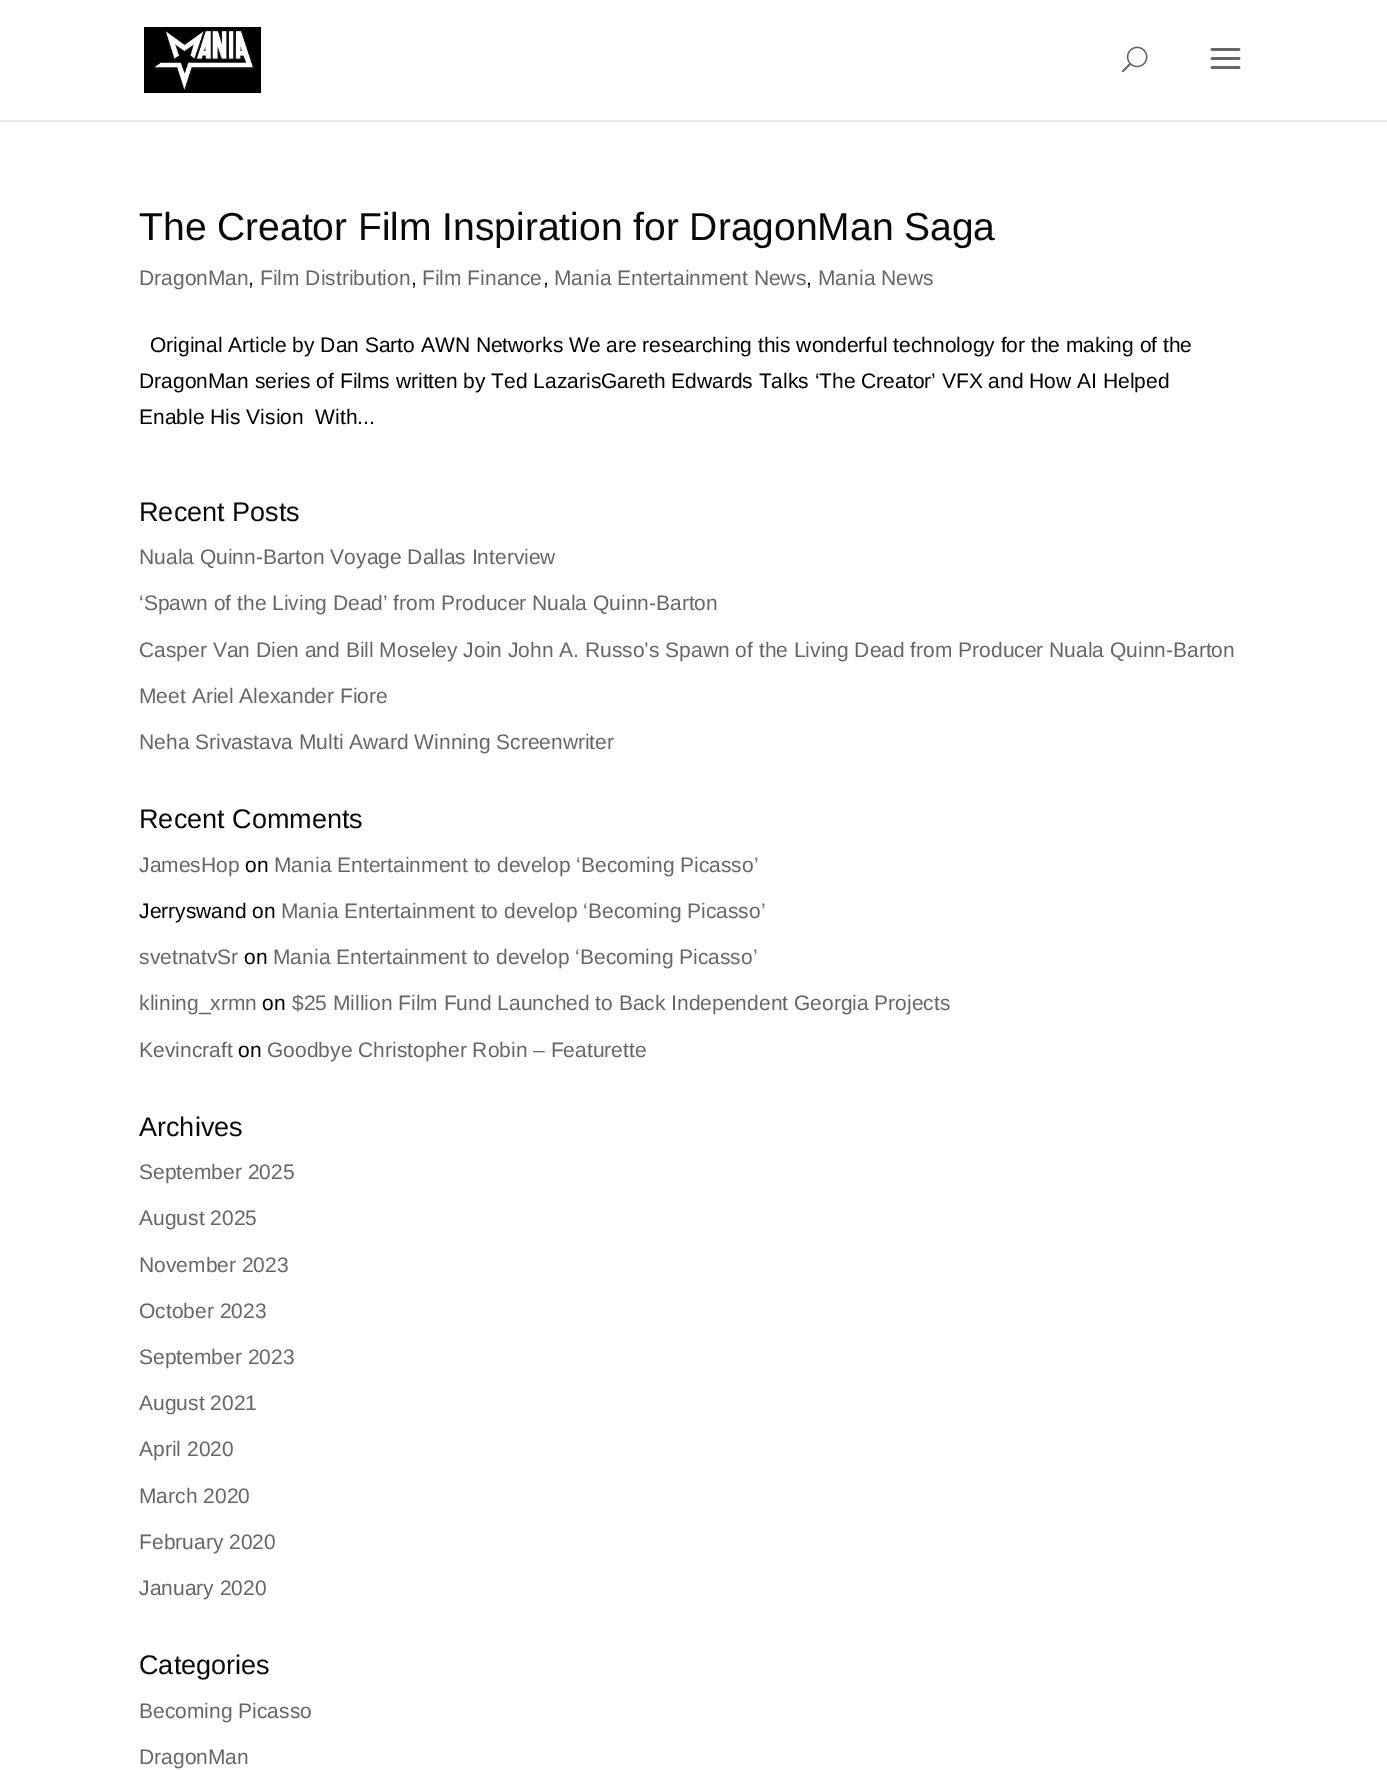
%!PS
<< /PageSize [1387 1770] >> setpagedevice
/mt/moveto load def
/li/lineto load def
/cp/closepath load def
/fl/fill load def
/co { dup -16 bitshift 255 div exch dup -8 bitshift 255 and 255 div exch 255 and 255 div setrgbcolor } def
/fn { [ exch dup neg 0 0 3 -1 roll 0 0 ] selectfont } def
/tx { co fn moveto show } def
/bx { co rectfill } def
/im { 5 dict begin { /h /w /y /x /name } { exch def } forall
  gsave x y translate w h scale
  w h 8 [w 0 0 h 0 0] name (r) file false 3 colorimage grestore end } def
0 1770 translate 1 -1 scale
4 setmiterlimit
0 0 1387 1770 16#FFFFFF bx
16#E6E6E6 co
0 120 mt 0 122 li 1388 122 li 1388 2 li 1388 120 li cp fl
(media/1.raw) 144 27 117 66 im
(media/2.raw) 1122 46 26 27 im
(media/3.raw) 1210 48 31 21 im
(The Creator Film Inspiration for DragonMan Saga) 139 240 /LiberationSans-Regular 39 16#0A0A0A tx
(DragonMan) 139 285 /LiberationSans-Regular 21 16#666666 tx
(,) 248 285 /LiberationSans-Regular 21 16#000000 tx
(Film Distribution) 260 285 /LiberationSans-Regular 21 16#666666 tx
(,) 411 285 /LiberationSans-Regular 21 16#000000 tx
(Film Finance) 422 285 /LiberationSans-Regular 21 16#666666 tx
(,) 543 285 /LiberationSans-Regular 21 16#000000 tx
(Mania Entertainment News) 554 285 /LiberationSans-Regular 21 16#666666 tx
(,) 806 285 /LiberationSans-Regular 21 16#000000 tx
(Mania News) 818 285 /LiberationSans-Regular 21 16#666666 tx
(Original Article by Dan Sarto AWN Networks We are researching this wonderful technology for the making of the) 150 352 /LiberationSans-Regular 21 16#000000 tx
(DragonMan series of Films written by Ted LazarisGareth Edwards Talks ‘The Creator’ VFX and How AI Helped) 139 388 /LiberationSans-Regular 21 16#000000 tx
(Enable His Vision  With...) 139 424 /LiberationSans-Regular 21 16#000000 tx
(Recent Posts) 139 521 /LiberationSans-Regular 27 16#0A0A0A tx
(Nuala Quinn-Barton Voyage Dallas Interview) 139 564 /LiberationSans-Regular 21 16#666666 tx
(‘Spawn of the Living Dead’ from Producer Nuala Quinn-Barton) 139 610 /LiberationSans-Regular 21 16#666666 tx
(Casper Van Dien and Bill Moseley Join John A. Russo’s Spawn of the Living Dead from Producer Nuala Quinn-Barton) 139 657 /LiberationSans-Regular 21 16#666666 tx
(Meet Ariel Alexander Fiore) 139 703 /LiberationSans-Regular 21 16#666666 tx
(Neha Srivastava Multi Award Winning Screenwriter) 139 749 /LiberationSans-Regular 21 16#666666 tx
(Recent Comments) 139 828 /LiberationSans-Regular 27 16#0A0A0A tx
(JamesHop) 139 872 /LiberationSans-Regular 21 16#666666 tx
(on) 245 872 /LiberationSans-Regular 21 16#000000 tx
(Mania Entertainment to develop ‘Becoming Picasso’) 274 872 /LiberationSans-Regular 21 16#666666 tx
(Jerryswand on) 139 918 /LiberationSans-Regular 21 16#000000 tx
(Mania Entertainment to develop ‘Becoming Picasso’) 281 918 /LiberationSans-Regular 21 16#666666 tx
(svetnatvSr) 139 964 /LiberationSans-Regular 21 16#666666 tx
(on) 244 964 /LiberationSans-Regular 21 16#000000 tx
(Mania Entertainment to develop ‘Becoming Picasso’) 273 964 /LiberationSans-Regular 21 16#666666 tx
(klining_xrmn) 139 1010 /LiberationSans-Regular 21 16#666666 tx
(on) 262 1010 /LiberationSans-Regular 21 16#000000 tx
($25 Million Film Fund Launched to Back Independent Georgia Projects) 292 1010 /LiberationSans-Regular 21 16#666666 tx
(Kevincraft) 139 1057 /LiberationSans-Regular 21 16#666666 tx
(on) 238 1057 /LiberationSans-Regular 21 16#000000 tx
(Goodbye Christopher Robin – Featurette) 267 1057 /LiberationSans-Regular 21 16#666666 tx
(Archives) 139 1136 /LiberationSans-Regular 27 16#0A0A0A tx
(September 2025) 139 1179 /LiberationSans-Regular 21 16#666666 tx
(August 2025) 139 1225 /LiberationSans-Regular 21 16#666666 tx
(November 2023) 139 1272 /LiberationSans-Regular 21 16#666666 tx
(October 2023) 139 1318 /LiberationSans-Regular 21 16#666666 tx
(September 2023) 139 1364 /LiberationSans-Regular 21 16#666666 tx
(August 2021) 139 1410 /LiberationSans-Regular 21 16#666666 tx
(April 2020) 139 1456 /LiberationSans-Regular 21 16#666666 tx
(March 2020) 139 1503 /LiberationSans-Regular 21 16#666666 tx
(February 2020) 139 1549 /LiberationSans-Regular 21 16#666666 tx
(January 2020) 139 1595 /LiberationSans-Regular 21 16#666666 tx
(Categories) 139 1674 /LiberationSans-Regular 27 16#0A0A0A tx
(Becoming Picasso) 139 1718 /LiberationSans-Regular 21 16#666666 tx
(DragonMan) 139 1764 /LiberationSans-Regular 21 16#666666 tx
showpage
